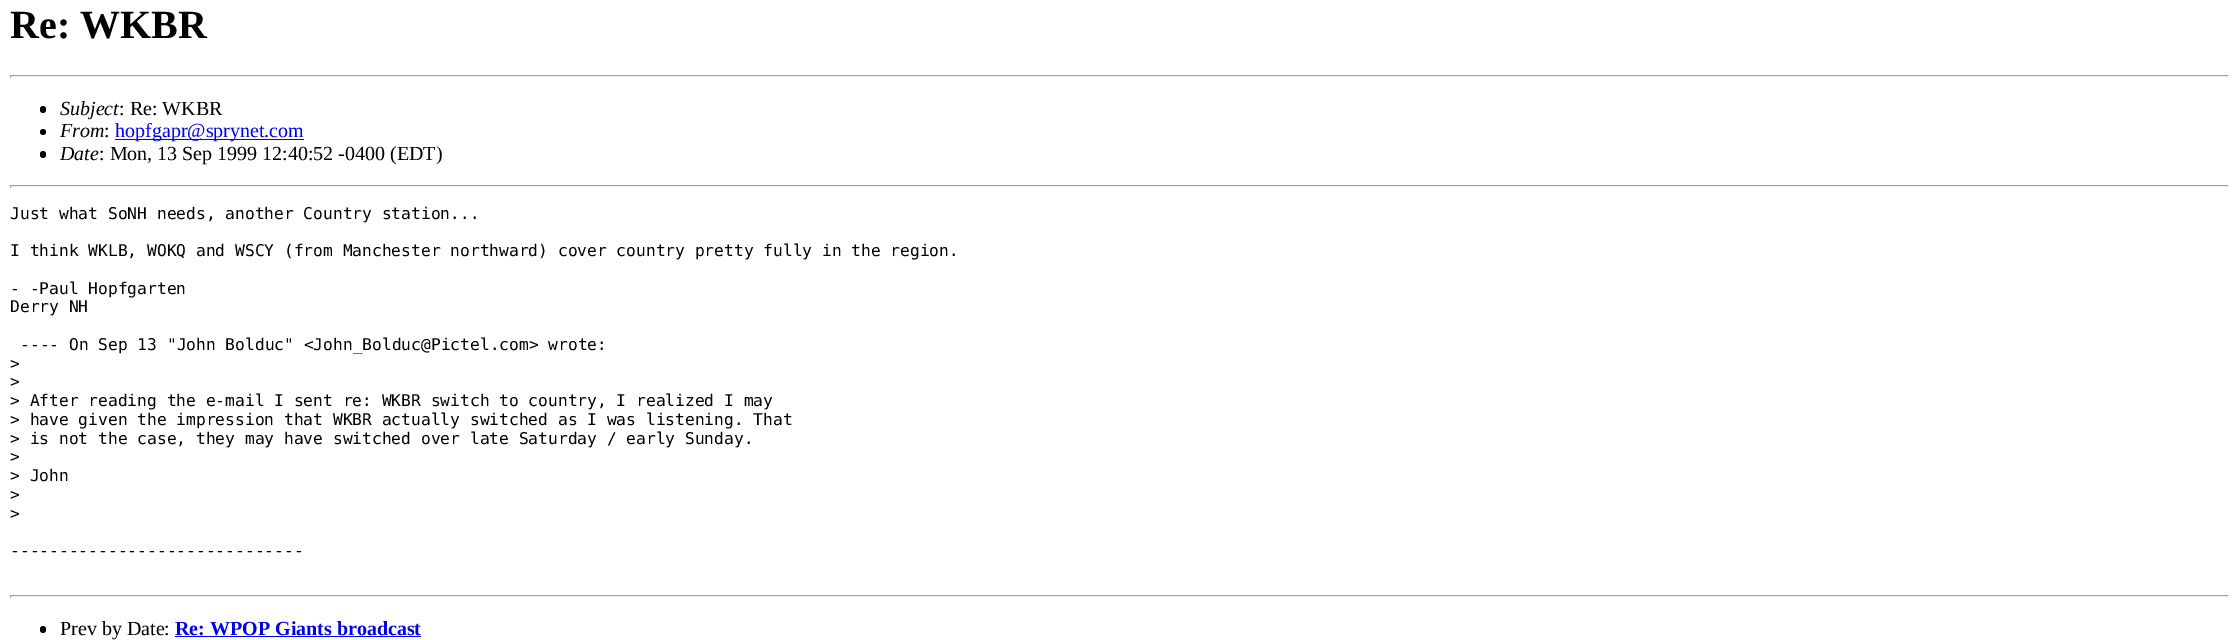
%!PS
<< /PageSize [2238 640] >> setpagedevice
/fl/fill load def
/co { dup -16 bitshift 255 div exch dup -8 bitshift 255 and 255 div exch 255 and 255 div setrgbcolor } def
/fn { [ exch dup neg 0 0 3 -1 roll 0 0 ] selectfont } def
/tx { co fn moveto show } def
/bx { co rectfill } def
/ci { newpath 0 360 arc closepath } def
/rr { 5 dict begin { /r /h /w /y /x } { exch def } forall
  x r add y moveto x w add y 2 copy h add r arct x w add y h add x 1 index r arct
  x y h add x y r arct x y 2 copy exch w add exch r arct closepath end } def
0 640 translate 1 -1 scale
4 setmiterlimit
0 0 2238 640 16#FFFFFF bx
10 75 2219 1 16#9F9F9F bx
2228 75 1 3 16#EEEEEE bx
10 76 2219 1 16#EEEEEE bx
10 75 1 3 16#9F9F9F bx
16#000000 co
40 106 6 7 3 rr fl
43 132 3 ci fl
115 139 189 1 16#0000EE bx
16#000000 co
40 151 6 7 3 rr fl
10 185 2219 1 16#9F9F9F bx
2228 185 1 3 16#EEEEEE bx
10 186 2219 1 16#EEEEEE bx
10 185 1 3 16#9F9F9F bx
10 595 2219 1 16#9F9F9F bx
2228 595 1 3 16#EEEEEE bx
10 596 2219 1 16#EEEEEE bx
10 595 1 3 16#9F9F9F bx
16#000000 co
40 626 6 7 3 rr fl
175 636 246 1 16#0000EE bx
(Re: WKBR) 10 38 /LiberationSerif-Bold 40 16#000000 tx
(Subject) 60 115 /LiberationSerif-Italic 20 16#000000 tx
(: Re: WKBR) 119 115 /LiberationSerif-Regular 20 16#000000 tx
(From) 60 137 /LiberationSerif-Italic 20 16#000000 tx
(:) 104 137 /LiberationSerif-Regular 20 16#000000 tx
(hopfgapr@sprynet.com) 115 137 /LiberationSerif-Regular 20 16#0000EE tx
(Date) 60 160 /LiberationSerif-Italic 20 16#000000 tx
(: Mon, 13 Sep 1999 12:40:52 -0400 \(EDT\)) 99 160 /LiberationSerif-Regular 20 16#000000 tx
(Just what SoNH needs, another Country station...) 10 219 /DejaVuSansMono-Regular 16.25 16#000000 tx
(I think WKLB, WOKQ and WSCY \(from Manchester northward\) cover country pretty fully in the region.) 10 256 /DejaVuSansMono-Regular 16.25 16#000000 tx
(- -Paul Hopfgarten) 10 294 /DejaVuSansMono-Regular 16.25 16#000000 tx
(Derry NH) 10 312 /DejaVuSansMono-Regular 16.25 16#000000 tx
(---- On Sep 13 "John Bolduc" <John_Bolduc@Pictel.com> wrote:) 20 350 /DejaVuSansMono-Regular 16.25 16#000000 tx
(>) 10 369 /DejaVuSansMono-Regular 16.25 16#000000 tx
(>) 10 387 /DejaVuSansMono-Regular 16.25 16#000000 tx
(> After reading the e-mail I sent re: WKBR switch to country, I realized I may) 10 406 /DejaVuSansMono-Regular 16.25 16#000000 tx
(> have given the impression that WKBR actually switched as I was listening. That) 10 425 /DejaVuSansMono-Regular 16.25 16#000000 tx
(> is not the case, they may have switched over late Saturday / early Sunday.) 10 444 /DejaVuSansMono-Regular 16.25 16#000000 tx
(>) 10 462 /DejaVuSansMono-Regular 16.25 16#000000 tx
(> John) 10 481 /DejaVuSansMono-Regular 16.25 16#000000 tx
(>) 10 500 /DejaVuSansMono-Regular 16.25 16#000000 tx
(>) 10 519 /DejaVuSansMono-Regular 16.25 16#000000 tx
(------------------------------) 10 556 /DejaVuSansMono-Regular 16.25 16#000000 tx
(Prev by Date:) 60 635 /LiberationSerif-Regular 20 16#000000 tx
(Re: WPOP Giants broadcast) 175 635 /LiberationSerif-Bold 20 16#0000EE tx
showpage
